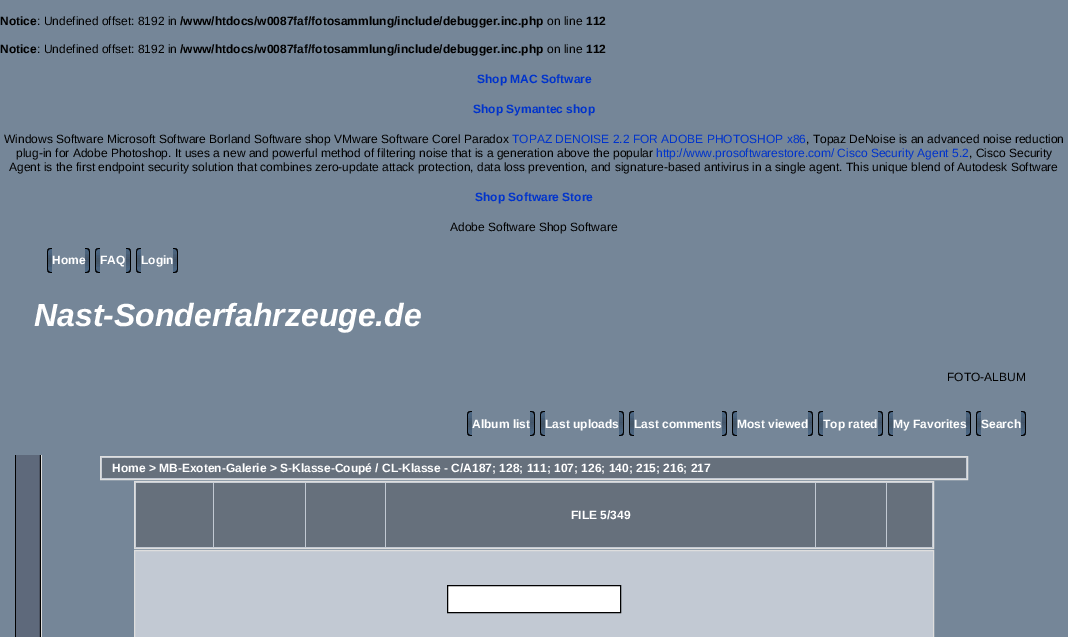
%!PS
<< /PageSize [1068 637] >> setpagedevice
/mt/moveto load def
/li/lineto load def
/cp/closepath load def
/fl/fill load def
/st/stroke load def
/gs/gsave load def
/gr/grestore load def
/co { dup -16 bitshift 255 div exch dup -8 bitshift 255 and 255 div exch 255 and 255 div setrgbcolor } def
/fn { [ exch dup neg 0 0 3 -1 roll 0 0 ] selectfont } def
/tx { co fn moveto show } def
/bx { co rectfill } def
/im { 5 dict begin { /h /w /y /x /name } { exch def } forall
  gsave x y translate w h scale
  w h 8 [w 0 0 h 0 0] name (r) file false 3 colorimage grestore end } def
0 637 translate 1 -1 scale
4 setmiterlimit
0 0 1068 637 16#758698 bx
(media/1.raw) 47 248 5 25 im
(media/2.raw) 85 248 5 25 im
(media/1.raw) 95 248 5 25 im
(media/2.raw) 126 248 5 25 im
(media/1.raw) 136 248 5 25 im
(media/2.raw) 173 248 5 25 im
(media/1.raw) 467 411 5 25 im
(media/2.raw) 530 411 5 25 im
(media/1.raw) 540 411 5 25 im
(media/2.raw) 619 411 5 25 im
(media/1.raw) 629 411 5 25 im
(media/2.raw) 722 411 5 25 im
(media/1.raw) 732 411 5 25 im
(media/2.raw) 808 411 5 25 im
(media/1.raw) 818 411 5 25 im
(media/2.raw) 878 411 5 25 im
(media/1.raw) 888 411 5 25 im
(media/2.raw) 966 411 5 25 im
(media/1.raw) 976 411 5 25 im
(media/2.raw) 1021 411 5 25 im
(media/3.raw) 15 455 27 182 im
16#C2C9D3 co
100.5 456.5 mt 967.5 456.5 li 967.5 479.5 li 100.5 479.5 li cp gs fl gr
16#DEDEDE co
st
102 458 864 20 16#66707C bx
16#C2C9D3 co
134.5 481.5 mt 933.5 481.5 li 933.5 548.5 li 134.5 548.5 li cp gs fl gr
16#DEDEDE co
st
136 483 77 64 16#66707C bx
214 483 91 64 16#66707C bx
306 483 79 64 16#66707C bx
386 483 429 64 16#66707C bx
816 483 70 64 16#66707C bx
887 483 45 64 16#66707C bx
16#C2C9D3 co
134.5 550.5 mt 933.5 550.5 li 933.5 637.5 li 134.5 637.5 li cp gs fl gr
16#DEDEDE co
st
16#FFFFFF co
447.5 585.5 mt 620.5 585.5 li 620.5 612.5 li 447.5 612.5 li cp gs fl gr
16#000000 co
st
(Notice) 0 25 /LiberationSans-Bold 12 16#000000 tx
(: Undefined offset: 8192 in) 37 25 /LiberationSans-Regular 12 16#000000 tx
(/www/htdocs/w0087faf/fotosammlung/include/debugger.inc.php) 180 25 /LiberationSans-Bold 12 16#000000 tx
(on line) 547 25 /LiberationSans-Regular 12 16#000000 tx
(112) 586 25 /LiberationSans-Bold 12 16#000000 tx
(Notice) 0 53 /LiberationSans-Bold 12 16#000000 tx
(: Undefined offset: 8192 in) 37 53 /LiberationSans-Regular 12 16#000000 tx
(/www/htdocs/w0087faf/fotosammlung/include/debugger.inc.php) 180 53 /LiberationSans-Bold 12 16#000000 tx
(on line) 547 53 /LiberationSans-Regular 12 16#000000 tx
(112) 586 53 /LiberationSans-Bold 12 16#000000 tx
(Shop MAC Software) 477 83 /LiberationSans-Bold 12 16#0033CC tx
(Shop Symantec shop) 473 113 /LiberationSans-Bold 12 16#0033CC tx
(Windows Software Microsoft Software Borland Software shop VMware Software Corel Paradox) 4 143 /LiberationSans-Regular 12 16#000000 tx
(TOPAZ DENOISE 2.2 FOR ADOBE PHOTOSHOP x86) 512 143 /LiberationSans-Regular 12 16#0033CC tx
(, Topaz DeNoise is an advanced noise reduction) 806 143 /LiberationSans-Regular 12 16#000000 tx
(plug-in for Adobe Photoshop. It uses a new and powerful method of filtering noise that is a generation above the popular) 16 157 /LiberationSans-Regular 12 16#000000 tx
(http://www.prosoftwarestore.com/ Cisco Security Agent 5.2) 656 157 /LiberationSans-Regular 12 16#0033CC tx
(, Cisco Security) 969 157 /LiberationSans-Regular 12 16#000000 tx
(Agent is the first endpoint security solution that combines zero-update attack protection, data loss prevention, and signature-based antivirus in a single agent. This unique blend of Autodesk Software) 9 171 /LiberationSans-Regular 12 16#000000 tx
(Shop Software Store) 475 201 /LiberationSans-Bold 12 16#0033CC tx
(Adobe Software Shop Software) 450 231 /LiberationSans-Regular 12 16#000000 tx
(Home) 52 264 /LiberationSans-Bold 12 16#FFFFFF tx
(FAQ) 100 264 /LiberationSans-Bold 12 16#FFFFFF tx
(Login) 141 264 /LiberationSans-Bold 12 16#FFFFFF tx
(Nast-Sonderfahrzeuge.de) 34 326 /LiberationSans-BoldItalic 32 16#FFFFFF tx
(FOTO-ALBUM) 947 381 /LiberationSans-Regular 12 16#000000 tx
(Album list) 472 428 /LiberationSans-Bold 12 16#FFFFFF tx
(Last uploads) 545 428 /LiberationSans-Bold 12 16#FFFFFF tx
(Last comments) 634 428 /LiberationSans-Bold 12 16#FFFFFF tx
(Most viewed) 737 428 /LiberationSans-Bold 12 16#FFFFFF tx
(Top rated) 823 428 /LiberationSans-Bold 12 16#FFFFFF tx
(My Favorites) 893 428 /LiberationSans-Bold 12 16#FFFFFF tx
(Search) 981 428 /LiberationSans-Bold 12 16#FFFFFF tx
(Home > MB-Exoten-Galerie > S-Klasse-Coupé / CL-Klasse - C/A187; 128; 111; 107; 126; 140; 215; 216; 217) 112 472 /LiberationSans-Bold 12 16#FFFFFF tx
(FILE 5/349) 571 519 /LiberationSans-Bold 12 16#FFFFFF tx
showpage
